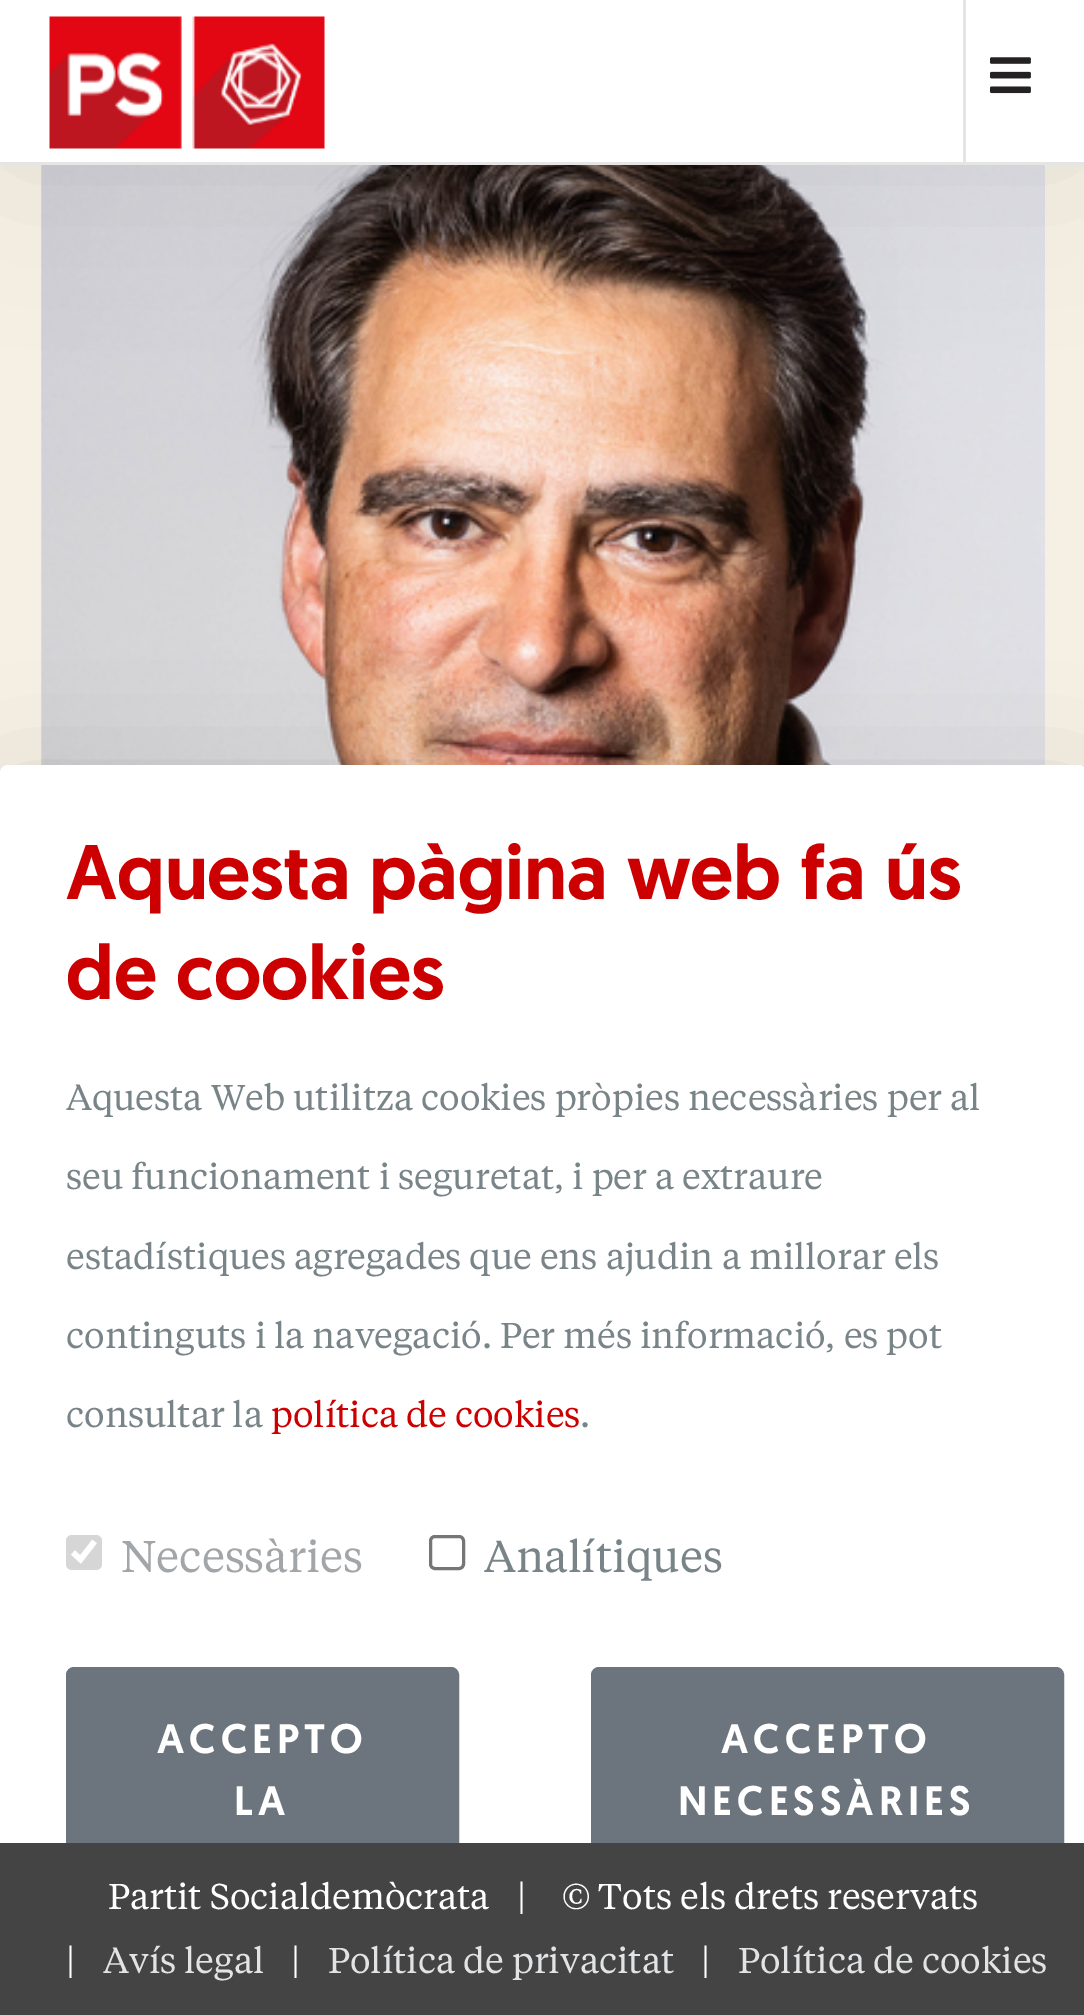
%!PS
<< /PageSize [1084 2015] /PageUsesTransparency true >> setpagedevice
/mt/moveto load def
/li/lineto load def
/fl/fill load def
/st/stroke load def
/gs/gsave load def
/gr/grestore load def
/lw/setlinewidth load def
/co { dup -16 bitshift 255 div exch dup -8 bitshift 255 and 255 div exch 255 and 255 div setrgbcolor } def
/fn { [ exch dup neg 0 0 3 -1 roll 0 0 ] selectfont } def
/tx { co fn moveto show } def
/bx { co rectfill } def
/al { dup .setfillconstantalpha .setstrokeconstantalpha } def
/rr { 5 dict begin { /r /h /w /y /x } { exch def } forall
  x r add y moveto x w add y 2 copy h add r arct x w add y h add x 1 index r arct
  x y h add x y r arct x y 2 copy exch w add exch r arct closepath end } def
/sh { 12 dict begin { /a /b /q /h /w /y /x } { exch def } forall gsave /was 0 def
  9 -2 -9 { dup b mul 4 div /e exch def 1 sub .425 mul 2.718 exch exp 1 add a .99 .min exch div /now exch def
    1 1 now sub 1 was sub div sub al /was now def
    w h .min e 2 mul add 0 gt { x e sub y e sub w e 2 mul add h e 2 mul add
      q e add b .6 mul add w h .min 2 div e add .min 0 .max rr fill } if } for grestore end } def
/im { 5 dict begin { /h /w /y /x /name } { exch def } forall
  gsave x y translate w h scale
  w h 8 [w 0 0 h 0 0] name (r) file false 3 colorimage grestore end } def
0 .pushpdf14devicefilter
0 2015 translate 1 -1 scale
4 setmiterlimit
0 0 1084 2015 16#F5F0E3 bx
(media/3.raw) 41 165 1004 600 im
16#000000 co
0 0 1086 165 0 82.5 .07 sh
0 0 1084 162 16#FFFFFF bx
0 162 1084 3 16#E5E5E5 bx
(media/1.raw) 49 16 276 133 im
963 0 3 162 16#E5E5E5 bx
(media/2.raw) 990 57 41 37 im
16#000000 co
0 809 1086 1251 8 66 .18 sh
16#FFFFFF co
0 765 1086 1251 8 rr fl
16#D6D6D6 co
66 1535 36 35 6 rr fl
16#FFFFFF co
5.7 lw
73 1552.5 mt 80.5 1559.5 li 94.5 1541.5 li st
16#767676 co
3 lw
430.5 1536.5 33 32 4.5 rr st
16#6C757D co
69 1670 387 277 5 rr gs fl gr
6 lw
st
594 1670 467 277 5 rr gs fl gr
st
0 1843 1084 172 16#444444 bx
(Aquesta pàgina web fa ús) 66 899 /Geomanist-Medium 77 16#CC0000 tx
(de cookies) 66 999 /Geomanist-Medium 77 16#CC0000 tx
(Aquesta Web utilitza cookies pròpies necessàries per al) 66 1110 /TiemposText-Regular 35.75 16#788487 tx
(seu funcionament i seguretat, i per a extraure) 66 1189 /TiemposText-Regular 35.75 16#788487 tx
(estadístiques agregades que ens ajudin a millorar els) 66 1269 /TiemposText-Regular 35.75 16#788487 tx
(continguts i la navegació. Per més informació, es pot) 66 1348 /TiemposText-Regular 35.75 16#788487 tx
(consultar la) 66 1427 /TiemposText-Regular 35.75 16#788487 tx
(política de cookies) 271 1427 /TiemposText-Regular 35.75 16#CC0000 tx
(.) 580 1427 /TiemposText-Regular 35.75 16#788487 tx
(Necessàries) 121 1572 /TiemposText-Regular 44 16#A3A6A8 tx
(Analítiques) 484 1572 /TiemposText-Regular 44 16#788487 tx
/Geomanist-Medium 41.25 fn
16#FFFFFF co
157 1753 mt 5 0 (ACCEPTO) ashow
234 1815 mt 5 0 (LA) ashow
721 1753 mt 5 0 (ACCEPTO) ashow
678 1815 mt 5 0 (NECESSÀRIES) ashow
(Partit Socialdemòcrata) 108 1909 /TiemposText-Regular 35.75 16#FFFFFF tx
(|) 517 1909 /TiemposText-Regular 35.75 16#FFFFFF tx
(© Tots els drets reservats) 562 1909 /TiemposText-Regular 35.75 16#FFFFFF tx
(|) 66 1973 /TiemposText-Regular 35.75 16#FFFFFF tx
(Avís legal) 103 1973 /TiemposText-Regular 35.75 16#E2E3E5 tx
(|) 291 1973 /TiemposText-Regular 35.75 16#FFFFFF tx
(Política de privacitat) 328 1973 /TiemposText-Regular 35.75 16#E2E3E5 tx
(|) 701 1973 /TiemposText-Regular 35.75 16#FFFFFF tx
(Política de cookies) 738 1973 /TiemposText-Regular 35.75 16#E2E3E5 tx
.poppdf14devicefilter showpage
